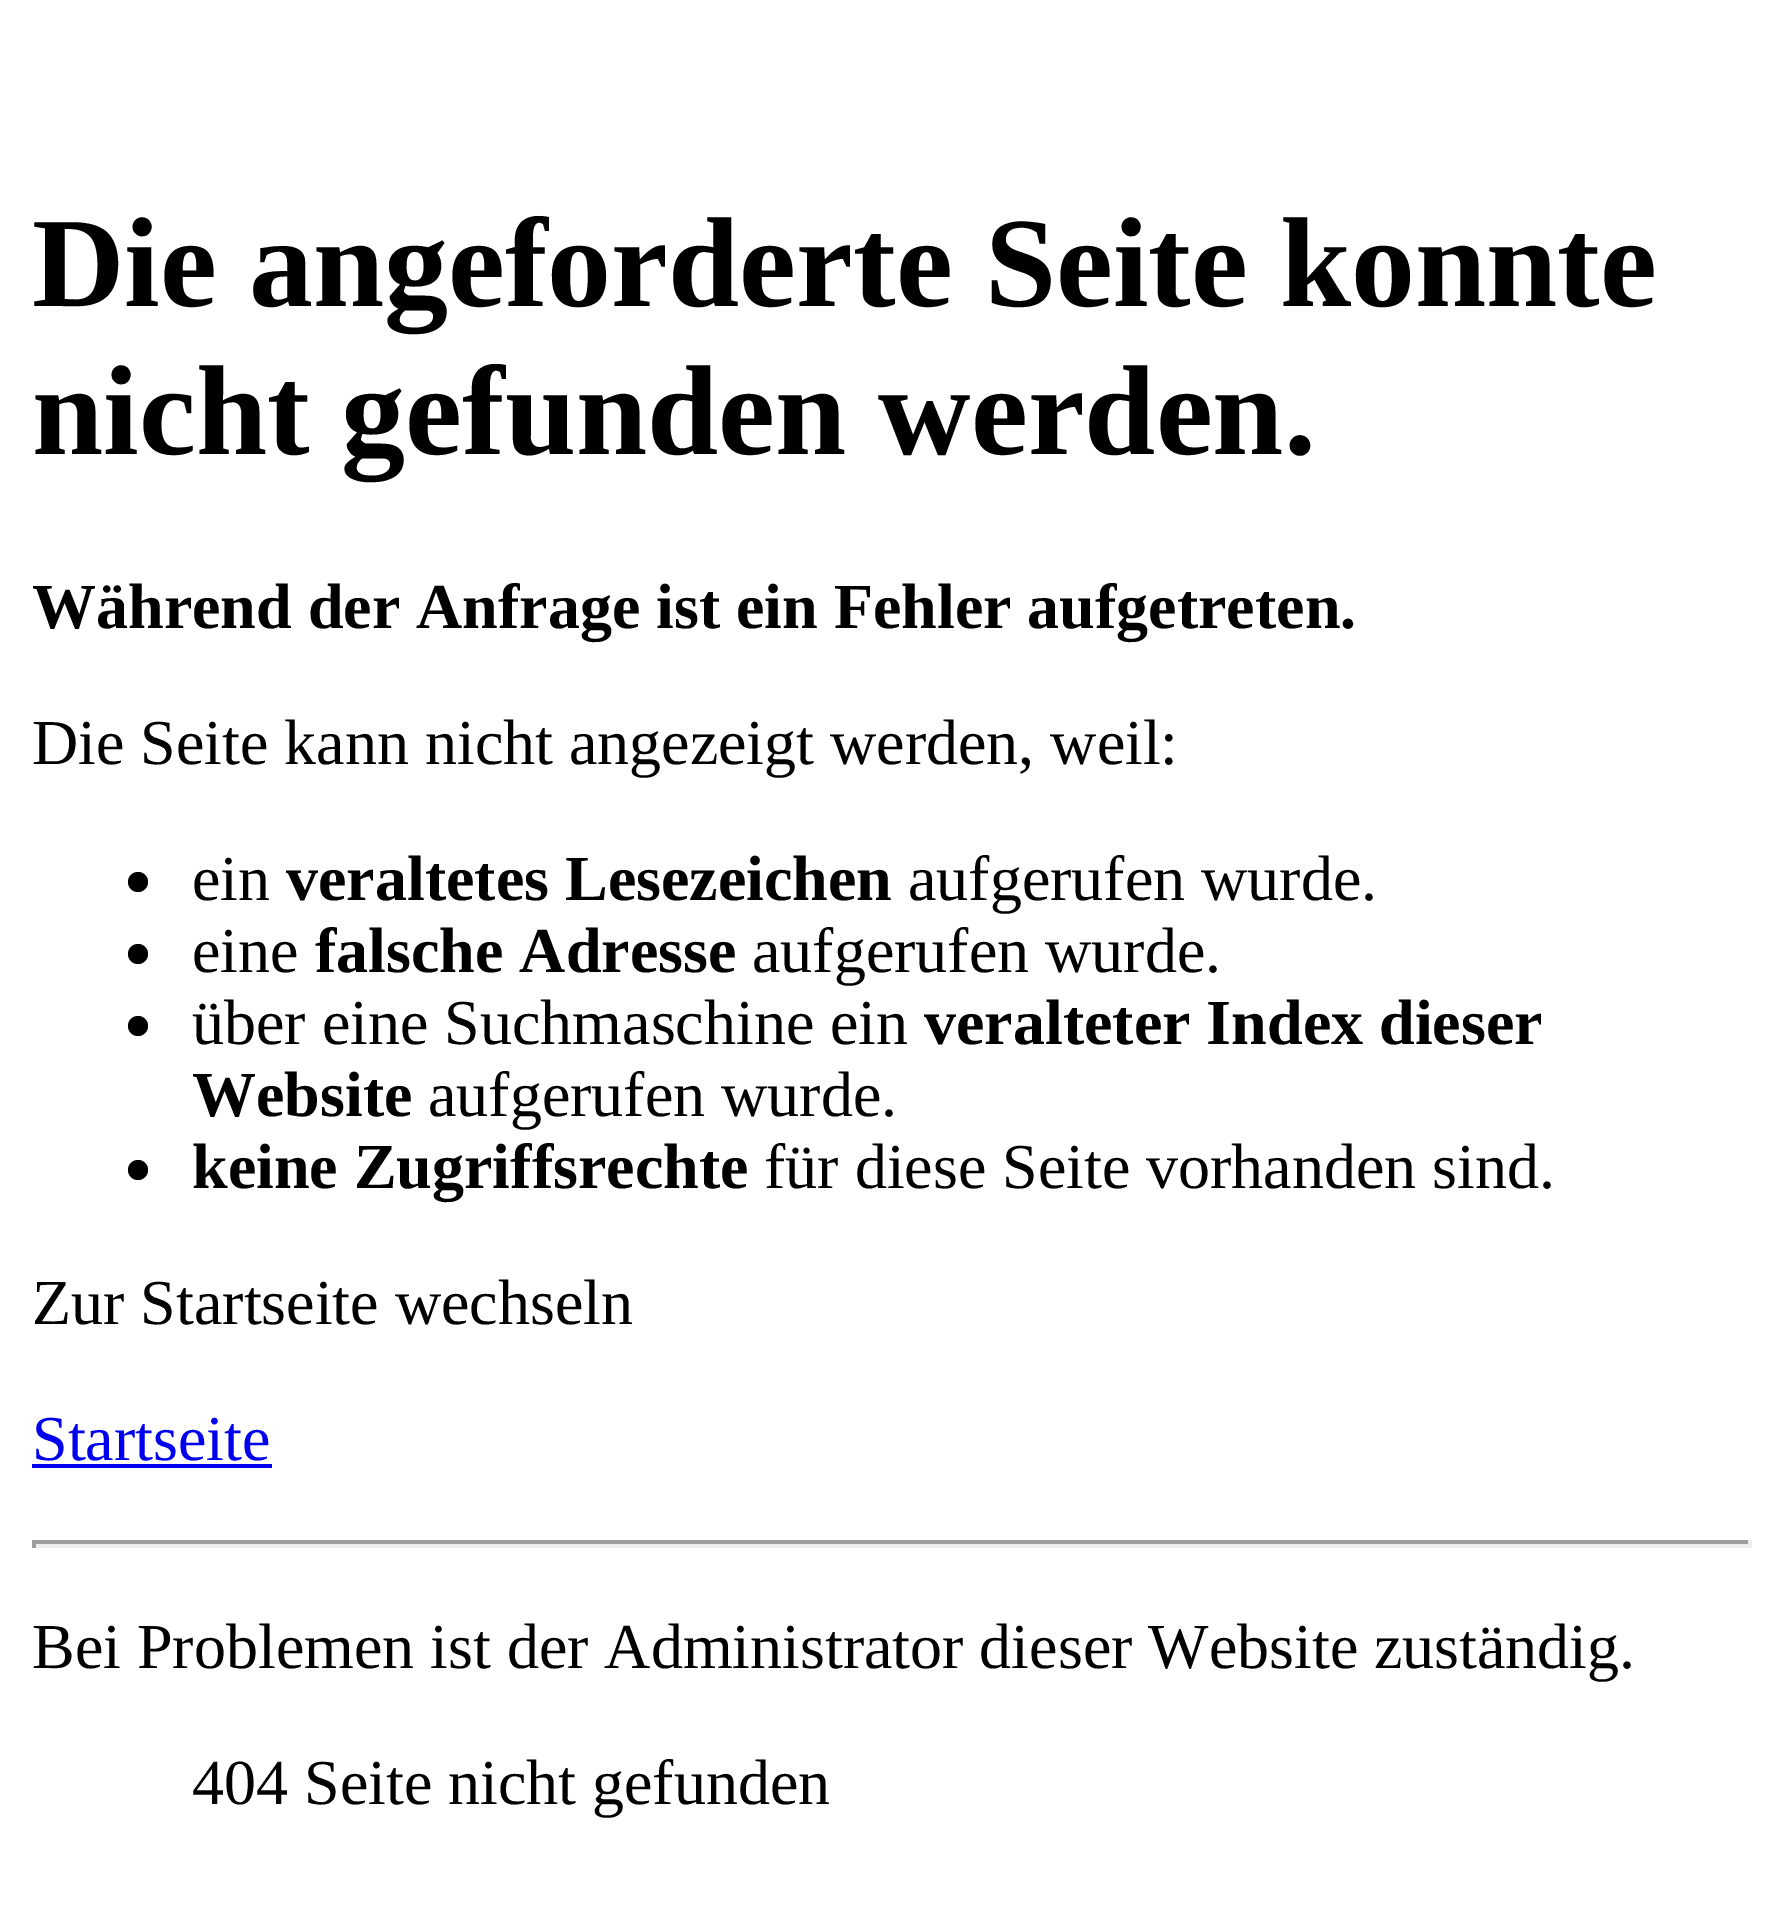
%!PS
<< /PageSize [1783 1905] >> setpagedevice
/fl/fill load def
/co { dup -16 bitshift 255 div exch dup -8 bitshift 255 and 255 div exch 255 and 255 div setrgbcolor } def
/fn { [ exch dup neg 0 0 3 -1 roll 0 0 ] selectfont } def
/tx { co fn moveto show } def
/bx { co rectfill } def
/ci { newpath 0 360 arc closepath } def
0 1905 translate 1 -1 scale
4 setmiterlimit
0 0 1783 1905 16#FFFFFF bx
16#000000 co
138 882 10 ci fl
138 954 10 ci fl
138 1026 10 ci fl
138 1170 10 ci fl
32 1464 240 4 16#0000EE bx
32 1540 1720 4 16#9F9F9F bx
1748 1540 4 8 16#EEEEEE bx
32 1544 1720 4 16#EEEEEE bx
32 1540 4 8 16#9F9F9F bx
(Die angeforderte Seite konnte) 32 306 /LiberationSerif-Bold 128 16#000000 tx
(nicht gefunden werden.) 32 454 /LiberationSerif-Bold 128 16#000000 tx
(Während der Anfrage ist ein Fehler aufgetreten.) 32 628 /LiberationSerif-Bold 64 16#000000 tx
(Die Seite kann nicht angezeigt werden, weil:) 32 764 /LiberationSerif-Regular 64 16#000000 tx
(ein) 192 900 /LiberationSerif-Regular 64 16#000000 tx
(veraltetes Lesezeichen) 286 900 /LiberationSerif-Bold 64 16#000000 tx
(aufgerufen wurde.) 908 900 /LiberationSerif-Regular 64 16#000000 tx
(eine) 192 972 /LiberationSerif-Regular 64 16#000000 tx
(falsche Adresse) 315 972 /LiberationSerif-Bold 64 16#000000 tx
(aufgerufen wurde.) 752 972 /LiberationSerif-Regular 64 16#000000 tx
(über eine Suchmaschine ein) 192 1044 /LiberationSerif-Regular 64 16#000000 tx
(veralteter Index dieser) 924 1044 /LiberationSerif-Bold 64 16#000000 tx
(Website) 192 1116 /LiberationSerif-Bold 64 16#000000 tx
(aufgerufen wurde.) 428 1116 /LiberationSerif-Regular 64 16#000000 tx
(keine Zugriffsrechte) 192 1188 /LiberationSerif-Bold 64 16#000000 tx
(für diese Seite vorhanden sind.) 764 1188 /LiberationSerif-Regular 64 16#000000 tx
(Zur Startseite wechseln) 32 1324 /LiberationSerif-Regular 64 16#000000 tx
(Startseite) 32 1460 /LiberationSerif-Regular 64 16#0000EE tx
(Bei Problemen ist der Administrator dieser Website zuständig.) 32 1668 /LiberationSerif-Regular 64 16#000000 tx
(404 Seite nicht gefunden) 192 1804 /LiberationSerif-Regular 64 16#000000 tx
showpage
